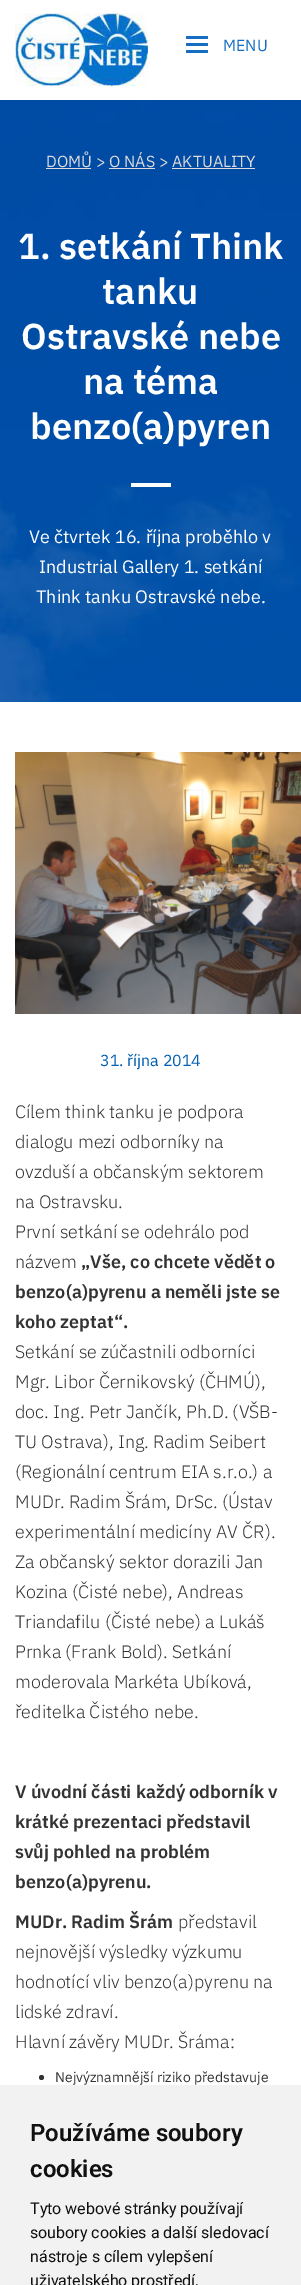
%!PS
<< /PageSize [301 2285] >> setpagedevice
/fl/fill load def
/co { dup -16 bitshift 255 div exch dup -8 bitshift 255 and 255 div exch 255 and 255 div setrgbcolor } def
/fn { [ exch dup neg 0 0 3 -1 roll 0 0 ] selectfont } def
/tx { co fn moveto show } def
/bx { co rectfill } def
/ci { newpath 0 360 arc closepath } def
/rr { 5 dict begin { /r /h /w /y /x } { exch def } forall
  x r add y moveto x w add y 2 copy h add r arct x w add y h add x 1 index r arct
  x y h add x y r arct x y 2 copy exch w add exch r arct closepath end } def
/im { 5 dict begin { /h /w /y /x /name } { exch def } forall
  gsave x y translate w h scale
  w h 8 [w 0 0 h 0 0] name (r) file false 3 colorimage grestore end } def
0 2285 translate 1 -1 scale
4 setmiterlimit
0 0 301 2285 16#FFFFFF bx
(media/1.raw) 15 13 133 74 im
16#156EC0 co
186 36 22 3 1 rr fl
186 43 22 3 1 rr fl
186 50 22 3 1 rr fl
(media/2.raw) 0 100 301 602 im
46 168 45 1 16#DFDBDB bx
109 168 46 1 16#DFDBDB bx
172 168 83 1 16#DFDBDB bx
131 483 40 4 16#FFFFFF bx
(media/3.raw) 15 752 286 262 im
16#333333 co
41.5 2077.5 2.5 ci fl
0 2085 301 200 16#F2F2F2 bx
(MENU) 223 51 /IBMPlexSans-Regular 16 16#156EC0 tx
(DOMŮ > O NÁS > AKTUALITY) 46 167 /IBMPlexSans-Regular 16 16#DFDBDB tx
(1. setkání Think) 18 259 /IBMPlexSans-SemiBold 36 16#FFFFFF tx
(tanku) 102 304 /IBMPlexSans-SemiBold 36 16#FFFFFF tx
(Ostravské nebe) 21 349 /IBMPlexSans-SemiBold 36 16#FFFFFF tx
(na téma) 83 394 /IBMPlexSans-SemiBold 36 16#FFFFFF tx
(benzo\(a\)pyren) 30 439 /IBMPlexSans-SemiBold 36 16#FFFFFF tx
(Ve čtvrtek 16. října proběhlo v) 29 543 /IBMPlexSans-Regular 18 16#FFFFFF tx
(Industrial Gallery 1. setkání) 39 573 /IBMPlexSans-Regular 18 16#FFFFFF tx
(Think tanku Ostravské nebe.) 36 603 /IBMPlexSans-Regular 18 16#FFFFFF tx
(31. října 2014) 100 1066 /IBMPlexSans-Regular 16 16#0460B2 tx
(Cílem think tanku je podpora) 15 1118 /IBMPlexSans-Light 18 16#333333 tx
(dialogu mezi odborníky na) 15 1148 /IBMPlexSans-Light 18 16#333333 tx
(ovzduší a občanským sektorem) 15 1178 /IBMPlexSans-Light 18 16#333333 tx
(na Ostravsku.) 15 1208 /IBMPlexSans-Light 18 16#333333 tx
(První setkání se odehrálo pod) 15 1238 /IBMPlexSans-Light 18 16#333333 tx
(názvem) 15 1268 /IBMPlexSans-Light 18 16#333333 tx
(„Vše, co chcete vědět o) 81 1268 /IBMPlexSans-SemiBold 18 16#333333 tx
(benzo\(a\)pyrenu a neměli jste se) 15 1298 /IBMPlexSans-SemiBold 18 16#333333 tx
(koho zeptat“.) 15 1328 /IBMPlexSans-SemiBold 18 16#333333 tx
(Setkání se zúčastnili odborníci) 15 1358 /IBMPlexSans-Light 18 16#333333 tx
(Mgr. Libor Černikovský \(ČHMÚ\),) 15 1388 /IBMPlexSans-Light 18 16#333333 tx
(doc. Ing. Petr Jančík, Ph.D. \(VŠB-) 15 1418 /IBMPlexSans-Light 18 16#333333 tx
(TU Ostrava\), Ing. Radim Seibert) 15 1448 /IBMPlexSans-Light 18 16#333333 tx
(\(Regionální centrum EIA s.r.o.\) a) 15 1478 /IBMPlexSans-Light 18 16#333333 tx
(MUDr. Radim Šrám, DrSc. \(Ústav) 15 1508 /IBMPlexSans-Light 18 16#333333 tx
(experimentální medicíny AV ČR\).) 15 1538 /IBMPlexSans-Light 18 16#333333 tx
(Za občanský sektor dorazili Jan) 15 1568 /IBMPlexSans-Light 18 16#333333 tx
(Kozina \(Čisté nebe\), Andreas) 15 1598 /IBMPlexSans-Light 18 16#333333 tx
(Triandafilu \(Čisté nebe\) a Lukáš) 15 1628 /IBMPlexSans-Light 18 16#333333 tx
(Prnka \(Frank Bold\). Setkání) 15 1658 /IBMPlexSans-Light 18 16#333333 tx
(moderovala Markéta Ubíková,) 15 1688 /IBMPlexSans-Light 18 16#333333 tx
(ředitelka Čistého nebe.) 15 1718 /IBMPlexSans-Light 18 16#333333 tx
(V úvodní části každý odborník v) 15 1798 /IBMPlexSans-SemiBold 18 16#333333 tx
(krátké prezentaci představil) 15 1828 /IBMPlexSans-SemiBold 18 16#333333 tx
(svůj pohled na problém) 15 1858 /IBMPlexSans-SemiBold 18 16#333333 tx
(benzo\(a\)pyrenu.) 15 1888 /IBMPlexSans-SemiBold 18 16#333333 tx
(MUDr. Radim Šrám) 15 1928 /IBMPlexSans-SemiBold 18 16#333333 tx
(představil) 178 1928 /IBMPlexSans-Light 18 16#333333 tx
(nejnovější výsledky výzkumu) 15 1958 /IBMPlexSans-Light 18 16#333333 tx
(hodnotící vliv benzo\(a\)pyrenu na) 15 1988 /IBMPlexSans-Light 18 16#333333 tx
(lidské zdraví.) 15 2018 /IBMPlexSans-Light 18 16#333333 tx
(Hlavní závěry MUDr. Šráma:) 15 2048 /IBMPlexSans-Light 18 16#333333 tx
(Nejvýznamnější riziko představuje) 55 2082 /IBMPlexSans-Regular 14 16#333333 tx
(Používáme soubory) 30 2141 /Roboto-SemiBold 24 16#111111 tx
(cookies) 30 2177 /Roboto-SemiBold 24 16#111111 tx
(Tyto webové stránky používají) 30 2214 /Roboto-Regular 16 16#111111 tx
(soubory cookies a další sledovací) 30 2238 /Roboto-Regular 16 16#111111 tx
(nástroje s cílem vylepšení) 30 2262 /Roboto-Regular 16 16#111111 tx
(uživatelského prostředí,) 30 2286 /Roboto-Regular 16 16#111111 tx
showpage
